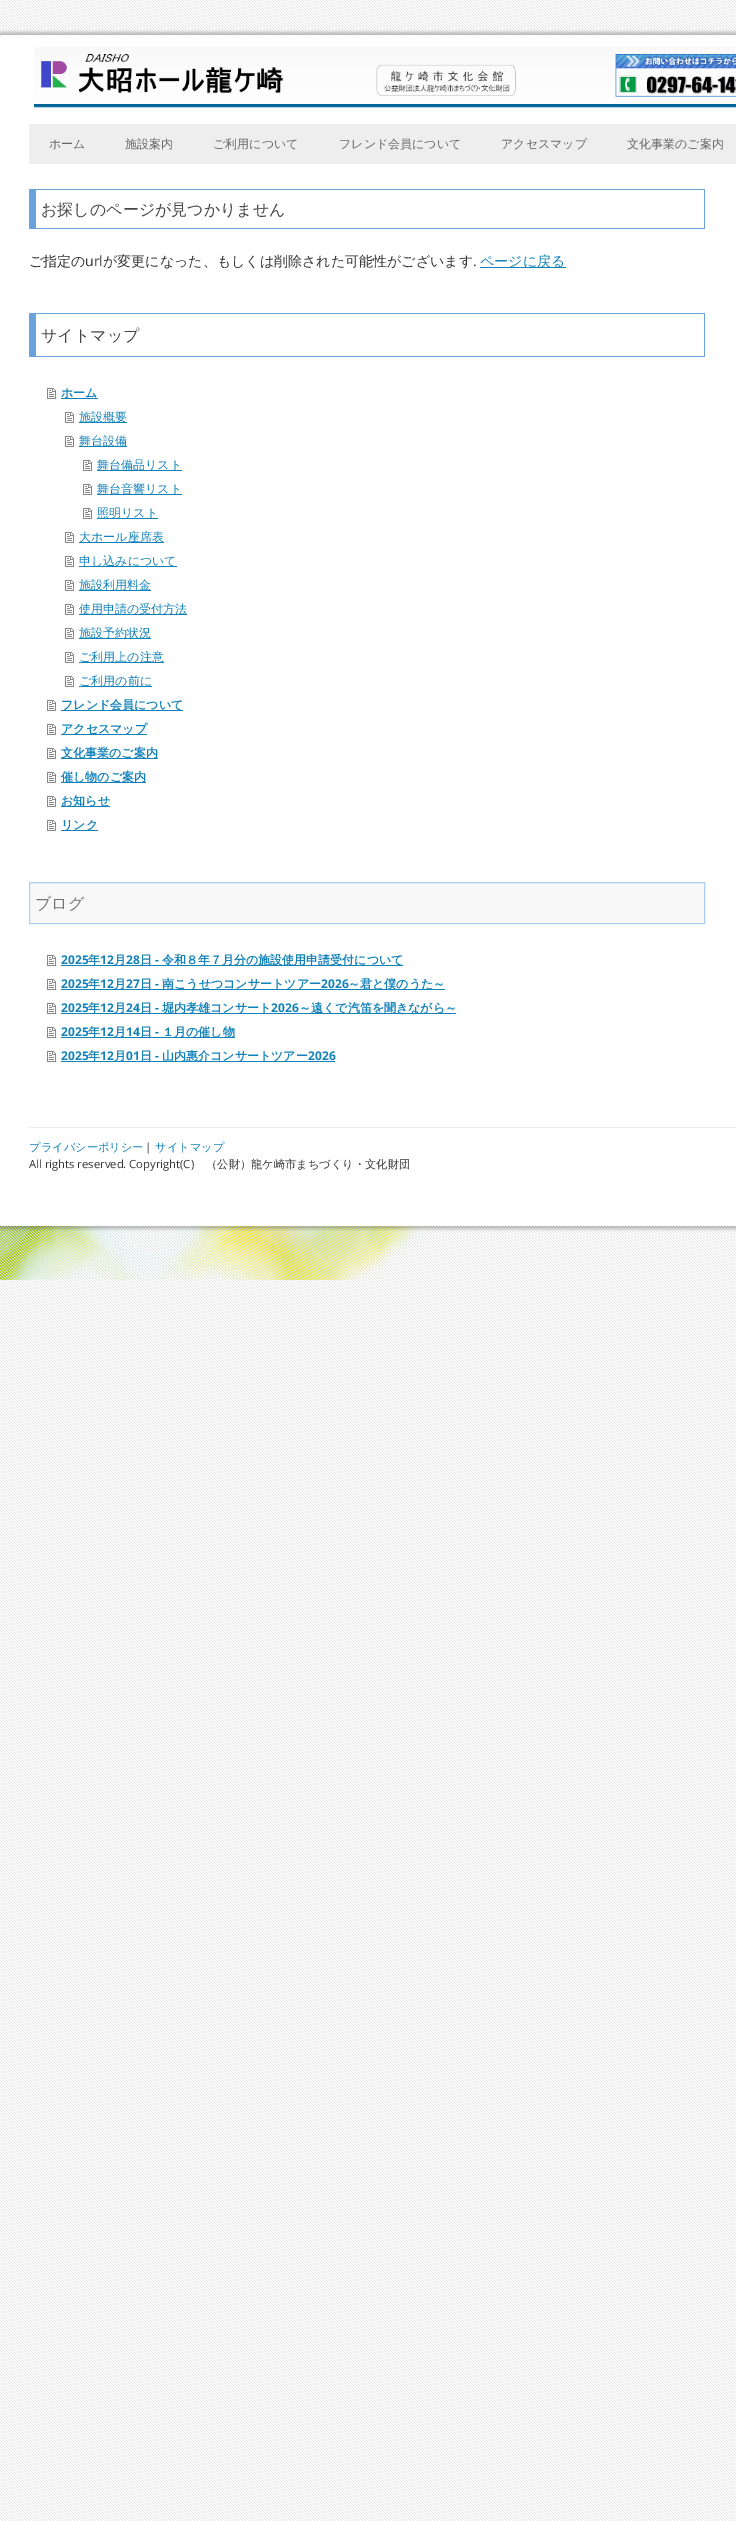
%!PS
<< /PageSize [736 2521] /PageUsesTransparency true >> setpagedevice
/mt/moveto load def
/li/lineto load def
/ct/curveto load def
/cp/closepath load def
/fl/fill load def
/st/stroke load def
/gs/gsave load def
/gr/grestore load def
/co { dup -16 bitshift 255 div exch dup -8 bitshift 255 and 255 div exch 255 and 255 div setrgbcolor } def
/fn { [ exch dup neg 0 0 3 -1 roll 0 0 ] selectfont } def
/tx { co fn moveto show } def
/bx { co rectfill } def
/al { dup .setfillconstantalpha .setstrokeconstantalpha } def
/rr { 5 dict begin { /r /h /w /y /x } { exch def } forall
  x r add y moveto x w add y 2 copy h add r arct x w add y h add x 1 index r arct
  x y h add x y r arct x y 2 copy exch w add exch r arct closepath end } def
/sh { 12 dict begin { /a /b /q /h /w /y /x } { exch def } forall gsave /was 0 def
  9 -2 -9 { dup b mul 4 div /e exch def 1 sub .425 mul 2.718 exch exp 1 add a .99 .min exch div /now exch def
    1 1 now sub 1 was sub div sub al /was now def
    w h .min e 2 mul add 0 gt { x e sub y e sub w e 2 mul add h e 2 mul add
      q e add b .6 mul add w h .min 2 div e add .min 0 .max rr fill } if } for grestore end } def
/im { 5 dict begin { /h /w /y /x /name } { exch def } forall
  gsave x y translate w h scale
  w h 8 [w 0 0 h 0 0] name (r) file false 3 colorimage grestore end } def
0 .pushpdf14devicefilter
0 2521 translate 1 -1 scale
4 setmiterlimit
0 0 736 2521 16#FFFFFF bx
(media/1.raw) 0 1224 648 56 im
(media/2.raw) 0 0 736 2521 im
16#333333 co
-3 32 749 1197 5 1.5 .3 sh
16#FFFFFF co
2 35 mt 736 35 li 736 1226 li 2 1226 li 1 1226 0 1225 0 1224 ct 0 37 li 0 36 1 35 2 35 ct cp fl
(media/3.raw) 34 47 702 61 im
29 124 707 40 16#EEEEEE bx
29 189 676 1 16#6AA2DB bx
704 189 1 40 16#6AA2DB bx
29 228 676 1 16#6AA2DB bx
29 189 7 40 16#6AA2DB bx
480 267 86 1 16#1382B9 bx
29 313 676 1 16#6AA2DB bx
704 313 1 44 16#6AA2DB bx
29 356 676 1 16#6AA2DB bx
29 313 7 44 16#6AA2DB bx
(media/4.raw) 47 388 9 11 im
61 398 37 1 16#1382B9 bx
(media/4.raw) 65 412 9 11 im
79 422 48 1 16#1382B9 bx
(media/4.raw) 65 436 9 11 im
79 446 48 1 16#1382B9 bx
(media/4.raw) 83 460 9 11 im
97 470 85 1 16#1382B9 bx
(media/4.raw) 83 484 9 11 im
97 494 85 1 16#1382B9 bx
(media/4.raw) 83 508 9 11 im
97 518 61 1 16#1382B9 bx
(media/4.raw) 65 532 9 11 im
79 542 85 1 16#1382B9 bx
(media/4.raw) 65 556 9 11 im
79 566 98 1 16#1382B9 bx
(media/4.raw) 65 580 9 11 im
79 590 72 1 16#1382B9 bx
(media/4.raw) 65 604 9 11 im
79 614 108 1 16#1382B9 bx
(media/4.raw) 65 628 9 11 im
79 638 72 1 16#1382B9 bx
(media/4.raw) 65 652 9 11 im
79 662 85 1 16#1382B9 bx
(media/4.raw) 65 676 9 11 im
79 686 73 1 16#1382B9 bx
(media/4.raw) 47 700 9 11 im
61 710 122 1 16#1382B9 bx
(media/4.raw) 47 724 9 11 im
61 734 86 1 16#1382B9 bx
(media/4.raw) 47 748 9 11 im
61 758 97 1 16#1382B9 bx
(media/4.raw) 47 772 9 11 im
61 782 85 1 16#1382B9 bx
(media/4.raw) 47 796 9 11 im
61 806 49 1 16#1382B9 bx
(media/4.raw) 47 820 9 11 im
61 830 37 1 16#1382B9 bx
16#F8F8F8 co
29.5 882.5 mt 704.5 882.5 li 704.5 923.5 li 29.5 923.5 li cp gs fl gr
16#ABCEF1 co
st
(media/4.raw) 47 955 9 11 im
61 965 342 1 16#1382B9 bx
(media/4.raw) 47 979 9 11 im
61 989 384 1 16#1382B9 bx
(media/4.raw) 47 1003 9 11 im
61 1013 395 1 16#1382B9 bx
(media/4.raw) 47 1027 9 11 im
61 1037 174 1 16#1382B9 bx
(media/4.raw) 47 1051 9 11 im
61 1061 274 1 16#1382B9 bx
29 1127 707 1 16#EDEDED bx
(ホーム) 49 148 /WenQuanYiZenHei-Medium 12 16#666666 tx
(施設案内) 125 148 /WenQuanYiZenHei-Medium 12 16#666666 tx
(ご利用について) 213 148 /WenQuanYiZenHei-Medium 12 16#666666 tx
(フレンド会員について) 339 148 /WenQuanYiZenHei-Medium 12 16#666666 tx
(アクセスマップ) 501 148 /WenQuanYiZenHei-Medium 12 16#666666 tx
(文化事業のご案内) 627 148 /WenQuanYiZenHei-Medium 12 16#666666 tx
(お探しのページが見つかりません) 41 215 /WenQuanYiZenHei-Medium 16 16#444444 tx
(ご指定の) 29 266 /WenQuanYiZenHei-Medium 14 16#333333 tx
(url) 85 266 /OpenSans-Regular 14 16#333333 tx
(が変更になった、もしくは削除された可能性がございます) 103 266 /WenQuanYiZenHei-Medium 14 16#333333 tx
(.) 473 266 /OpenSans-Regular 14 16#333333 tx
(ページに戻る) 480 266 /WenQuanYiZenHei-Medium 14 16#1382B9 tx
(サイトマップ) 41 341 /WenQuanYiZenHei-Medium 16 16#444444 tx
(ホーム) 61 397 /WenQuanYiZenHei-Bold 12 16#1382B9 tx
(施設概要) 79 421 /WenQuanYiZenHei-Medium 12 16#1382B9 tx
(舞台設備) 79 445 /WenQuanYiZenHei-Medium 12 16#1382B9 tx
(舞台備品リスト) 97 469 /WenQuanYiZenHei-Medium 12 16#1382B9 tx
(舞台音響リスト) 97 493 /WenQuanYiZenHei-Medium 12 16#1382B9 tx
(照明リスト) 97 517 /WenQuanYiZenHei-Medium 12 16#1382B9 tx
(大ホール座席表) 79 541 /WenQuanYiZenHei-Medium 12 16#1382B9 tx
(申し込みについて) 79 565 /WenQuanYiZenHei-Medium 12 16#1382B9 tx
(施設利用料金) 79 589 /WenQuanYiZenHei-Medium 12 16#1382B9 tx
(使用申請の受付方法) 79 613 /WenQuanYiZenHei-Medium 12 16#1382B9 tx
(施設予約状況) 79 637 /WenQuanYiZenHei-Medium 12 16#1382B9 tx
(ご利用上の注意) 79 661 /WenQuanYiZenHei-Medium 12 16#1382B9 tx
(ご利用の前に) 79 685 /WenQuanYiZenHei-Medium 12 16#1382B9 tx
(フレンド会員について) 61 709 /WenQuanYiZenHei-Bold 12 16#1382B9 tx
(アクセスマップ) 61 733 /WenQuanYiZenHei-Bold 12 16#1382B9 tx
(文化事業のご案内) 61 757 /WenQuanYiZenHei-Bold 12 16#1382B9 tx
(催し物のご案内) 61 781 /WenQuanYiZenHei-Bold 12 16#1382B9 tx
(お知らせ) 61 805 /WenQuanYiZenHei-Bold 12 16#1382B9 tx
(リンク) 61 829 /WenQuanYiZenHei-Bold 12 16#1382B9 tx
(ブログ) 35 909 /WenQuanYiZenHei-Medium 16 16#757575 tx
(2025) 61 964 /OpenSans-Bold 12 16#1382B9 tx
(年) 88 964 /WenQuanYiZenHei-Bold 12 16#1382B9 tx
(12) 100 964 /OpenSans-Bold 12 16#1382B9 tx
(月) 114 964 /WenQuanYiZenHei-Bold 12 16#1382B9 tx
(28) 126 964 /OpenSans-Bold 12 16#1382B9 tx
(日) 140 964 /WenQuanYiZenHei-Bold 12 16#1382B9 tx
(-) 155 964 /OpenSans-Bold 12 16#1382B9 tx
(令和８年７月分の施設使用申請受付について) 162 964 /WenQuanYiZenHei-Bold 12 16#1382B9 tx
(2025) 61 988 /OpenSans-Bold 12 16#1382B9 tx
(年) 88 988 /WenQuanYiZenHei-Bold 12 16#1382B9 tx
(12) 100 988 /OpenSans-Bold 12 16#1382B9 tx
(月) 114 988 /WenQuanYiZenHei-Bold 12 16#1382B9 tx
(27) 126 988 /OpenSans-Bold 12 16#1382B9 tx
(日) 140 988 /WenQuanYiZenHei-Bold 12 16#1382B9 tx
(-) 155 988 /OpenSans-Bold 12 16#1382B9 tx
(南こうせつコンサートツアー) 162 988 /WenQuanYiZenHei-Bold 12 16#1382B9 tx
(2026) 321 988 /OpenSans-Bold 12 16#1382B9 tx
(～君と僕のうた～) 348 988 /WenQuanYiZenHei-Bold 12 16#1382B9 tx
(2025) 61 1012 /OpenSans-Bold 12 16#1382B9 tx
(年) 88 1012 /WenQuanYiZenHei-Bold 12 16#1382B9 tx
(12) 100 1012 /OpenSans-Bold 12 16#1382B9 tx
(月) 114 1012 /WenQuanYiZenHei-Bold 12 16#1382B9 tx
(24) 126 1012 /OpenSans-Bold 12 16#1382B9 tx
(日) 140 1012 /WenQuanYiZenHei-Bold 12 16#1382B9 tx
(-) 155 1012 /OpenSans-Bold 12 16#1382B9 tx
(堀内孝雄コンサート) 162 1012 /WenQuanYiZenHei-Bold 12 16#1382B9 tx
(2026) 271 1012 /OpenSans-Bold 12 16#1382B9 tx
(～遠くで汽笛を聞きながら～) 299 1012 /WenQuanYiZenHei-Bold 12 16#1382B9 tx
(2025) 61 1036 /OpenSans-Bold 12 16#1382B9 tx
(年) 88 1036 /WenQuanYiZenHei-Bold 12 16#1382B9 tx
(12) 100 1036 /OpenSans-Bold 12 16#1382B9 tx
(月) 114 1036 /WenQuanYiZenHei-Bold 12 16#1382B9 tx
(14) 126 1036 /OpenSans-Bold 12 16#1382B9 tx
(日) 140 1036 /WenQuanYiZenHei-Bold 12 16#1382B9 tx
(-) 155 1036 /OpenSans-Bold 12 16#1382B9 tx
(１月の催し物) 162 1036 /WenQuanYiZenHei-Bold 12 16#1382B9 tx
(2025) 61 1060 /OpenSans-Bold 12 16#1382B9 tx
(年) 88 1060 /WenQuanYiZenHei-Bold 12 16#1382B9 tx
(12) 100 1060 /OpenSans-Bold 12 16#1382B9 tx
(月) 114 1060 /WenQuanYiZenHei-Bold 12 16#1382B9 tx
(01) 126 1060 /OpenSans-Bold 12 16#1382B9 tx
(日) 140 1060 /WenQuanYiZenHei-Bold 12 16#1382B9 tx
(-) 155 1060 /OpenSans-Bold 12 16#1382B9 tx
(山内惠介コンサートツアー) 162 1060 /WenQuanYiZenHei-Bold 12 16#1382B9 tx
(2026) 308 1060 /OpenSans-Bold 12 16#1382B9 tx
(プライバシーポリシー) 29 1151 /WenQuanYiZenHei-Medium 11.25 16#1382B9 tx
(|) 145 1151 /OpenSans-Regular 11.25 16#333333 tx
(サイトマップ) 155 1151 /WenQuanYiZenHei-Medium 11.25 16#1382B9 tx
(All rights reserved. Copyright\(C\)) 29 1168 /OpenSans-Regular 11.25 16#333333 tx
(（公財）龍ケ崎市まちづくり・文化財団) 206 1168 /WenQuanYiZenHei-Medium 11.25 16#333333 tx
.poppdf14devicefilter showpage
